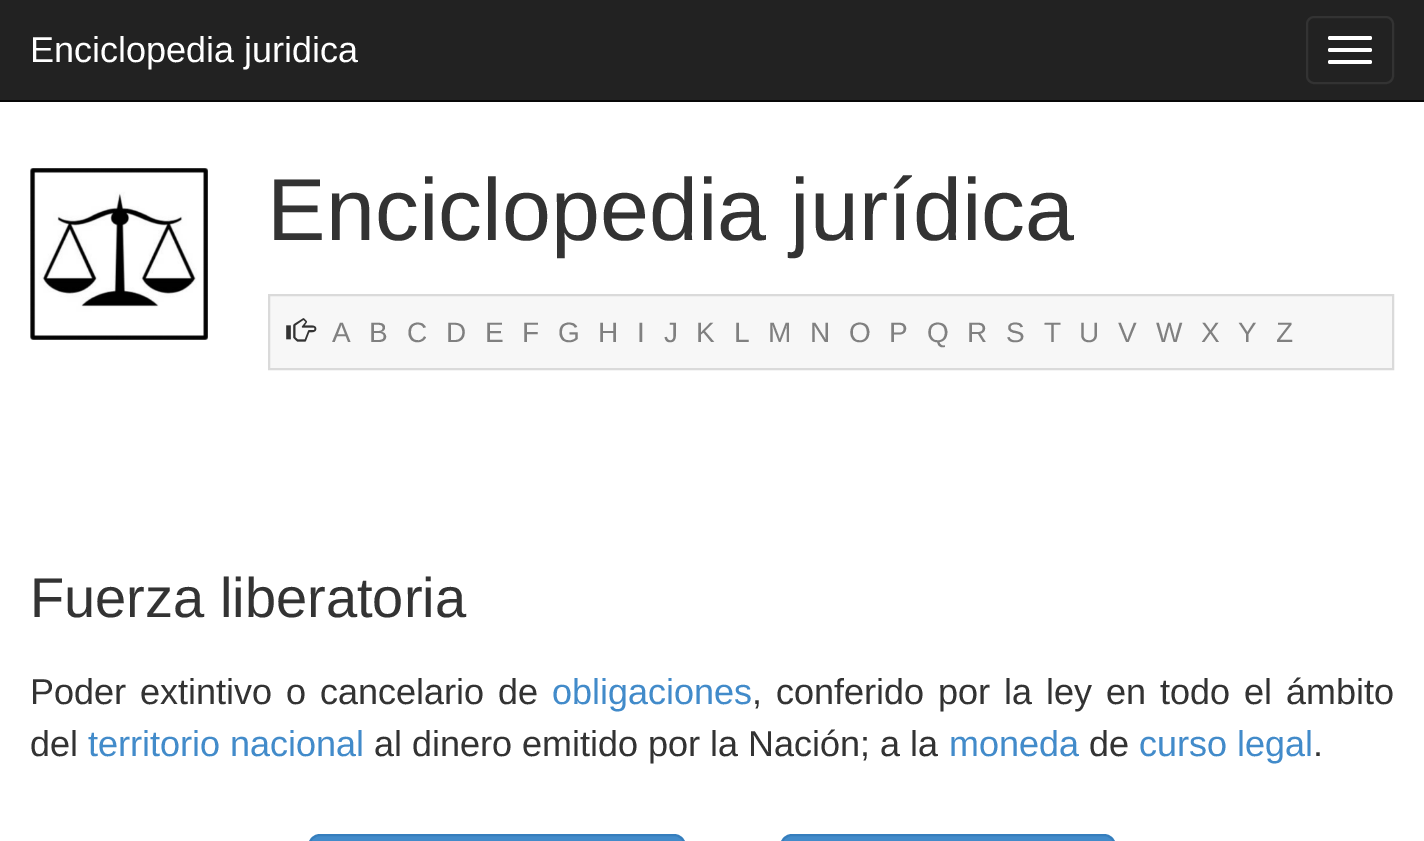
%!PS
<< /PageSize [1424 841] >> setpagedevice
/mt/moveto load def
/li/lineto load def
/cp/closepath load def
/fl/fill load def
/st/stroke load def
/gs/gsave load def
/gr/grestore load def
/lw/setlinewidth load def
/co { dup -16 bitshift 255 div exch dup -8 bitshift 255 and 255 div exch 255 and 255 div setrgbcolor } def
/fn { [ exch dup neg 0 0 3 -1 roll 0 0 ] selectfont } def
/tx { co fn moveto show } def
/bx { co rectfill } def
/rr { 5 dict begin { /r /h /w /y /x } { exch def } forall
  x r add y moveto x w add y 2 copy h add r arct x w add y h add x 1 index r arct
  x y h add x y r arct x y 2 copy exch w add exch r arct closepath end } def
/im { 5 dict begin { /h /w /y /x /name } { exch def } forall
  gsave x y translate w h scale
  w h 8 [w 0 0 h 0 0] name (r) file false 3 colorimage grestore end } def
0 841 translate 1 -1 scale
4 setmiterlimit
0 0 1424 841 16#FFFFFF bx
0 0 1424 100 16#222222 bx
0 100 1424 2 16#080808 bx
16#333333 co
2 lw
1307 17 86 66 7 rr st
16#FFFFFF co
1328 36 44 4 2 rr fl
1328 48 44 4 2 rr fl
1328 60 44 4 2 rr fl
(media/1.raw) 30 168 178 172 im
16#F7F7F7 co
269 295 mt 1393 295 li 1393 369 li 269 369 li cp gs fl gr
16#DADADA co
st
(media/2.raw) 286 318 31 24 im
16#428BCA co
309 835 376 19 11 rr gs fl gr
16#357EBD co
st
16#428BCA co
781 835 334 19 11 rr gs fl gr
16#357EBD co
st
(Enciclopedia juridica) 30 62 /LiberationSans-Regular 36 16#FFFFFF tx
(Enciclopedia jurídica) 267 240 /LiberationSans-Regular 88 16#333333 tx
(A) 332 342 /LiberationSans-Regular 28 16#808080 tx
(B) 369 342 /LiberationSans-Regular 28 16#808080 tx
(C) 407 342 /LiberationSans-Regular 28 16#808080 tx
(D) 446 342 /LiberationSans-Regular 28 16#808080 tx
(E) 485 342 /LiberationSans-Regular 28 16#808080 tx
(F) 522 342 /LiberationSans-Regular 28 16#808080 tx
(G) 558 342 /LiberationSans-Regular 28 16#808080 tx
(H) 598 342 /LiberationSans-Regular 28 16#808080 tx
(I) 637 342 /LiberationSans-Regular 28 16#808080 tx
(J) 664 342 /LiberationSans-Regular 28 16#808080 tx
(K) 696 342 /LiberationSans-Regular 28 16#808080 tx
(L) 734 342 /LiberationSans-Regular 28 16#808080 tx
(M) 768 342 /LiberationSans-Regular 28 16#808080 tx
(N) 810 342 /LiberationSans-Regular 28 16#808080 tx
(O) 849 342 /LiberationSans-Regular 28 16#808080 tx
(P) 889 342 /LiberationSans-Regular 28 16#808080 tx
(Q) 927 342 /LiberationSans-Regular 28 16#808080 tx
(R) 967 342 /LiberationSans-Regular 28 16#808080 tx
(S) 1006 342 /LiberationSans-Regular 28 16#808080 tx
(T) 1044 342 /LiberationSans-Regular 28 16#808080 tx
(U) 1079 342 /LiberationSans-Regular 28 16#808080 tx
(V) 1118 342 /LiberationSans-Regular 28 16#808080 tx
(W) 1156 342 /LiberationSans-Regular 28 16#808080 tx
(X) 1201 342 /LiberationSans-Regular 28 16#808080 tx
(Y) 1238 342 /LiberationSans-Regular 28 16#808080 tx
(Z) 1276 342 /LiberationSans-Regular 28 16#808080 tx
(Fuerza liberatoria) 30 617 /LiberationSans-Regular 56 16#333333 tx
/LiberationSans-Regular 36 fn
30 704 mt 4 0 32 (Poder extintivo o cancelario de) widthshow
(obligaciones) 552 704 /LiberationSans-Regular 36 16#428BCA tx
16#333333 co
752 704 mt 4 0 32 (, conferido por la ley en todo el ámbito) widthshow
(del) 30 756 /LiberationSans-Regular 36 16#333333 tx
(territorio nacional) 88 756 /LiberationSans-Regular 36 16#428BCA tx
(al dinero emitido por la Nación; a la) 374 756 /LiberationSans-Regular 36 16#333333 tx
(moneda) 949 756 /LiberationSans-Regular 36 16#428BCA tx
(de) 1089 756 /LiberationSans-Regular 36 16#333333 tx
(curso legal) 1139 756 /LiberationSans-Regular 36 16#428BCA tx
(.) 1313 756 /LiberationSans-Regular 36 16#333333 tx
showpage
